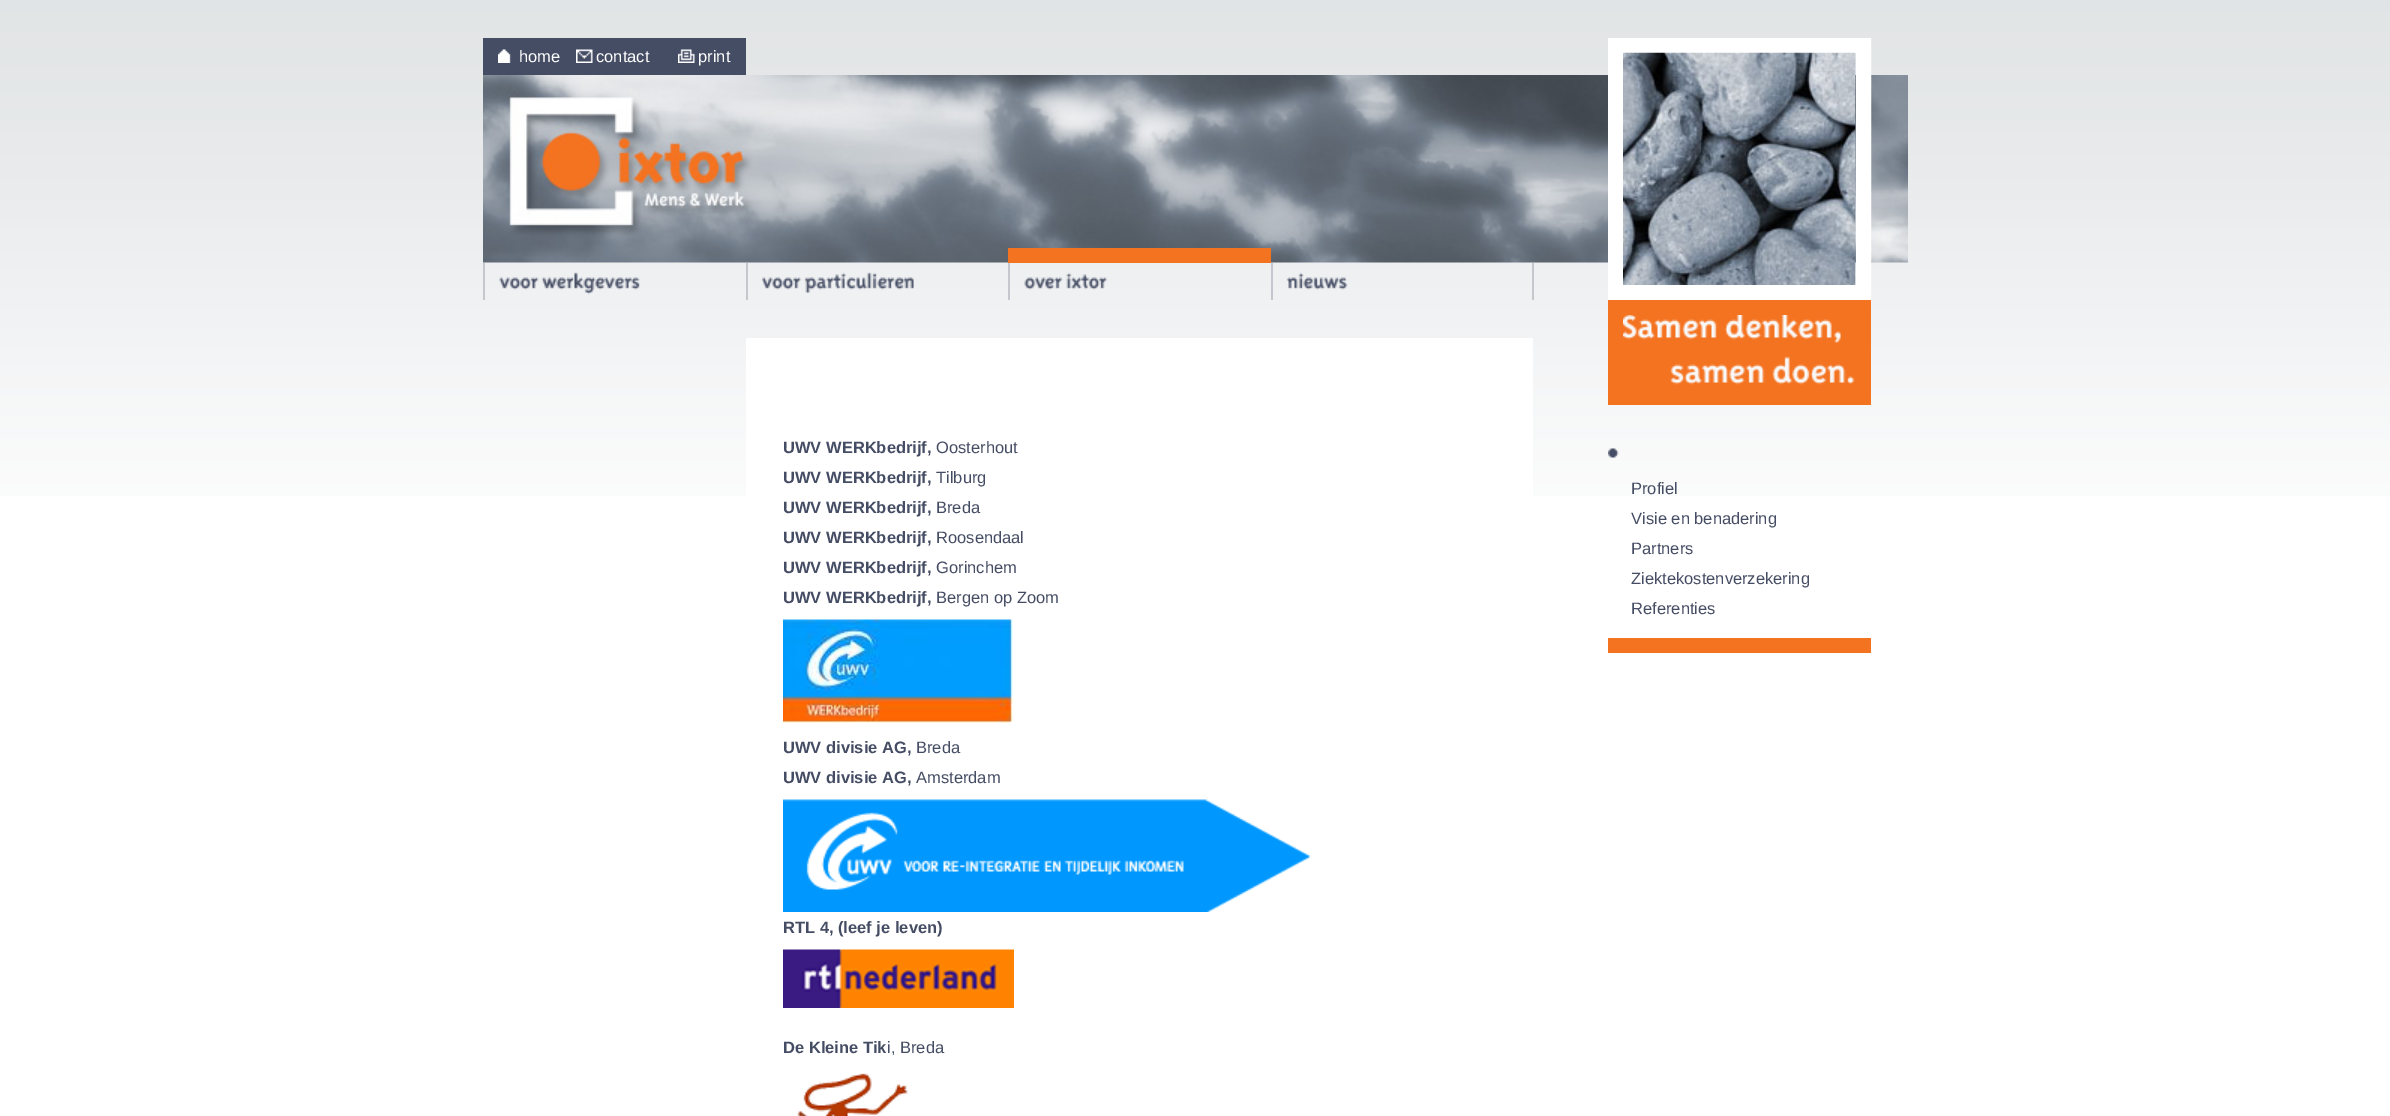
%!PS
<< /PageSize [2390 1116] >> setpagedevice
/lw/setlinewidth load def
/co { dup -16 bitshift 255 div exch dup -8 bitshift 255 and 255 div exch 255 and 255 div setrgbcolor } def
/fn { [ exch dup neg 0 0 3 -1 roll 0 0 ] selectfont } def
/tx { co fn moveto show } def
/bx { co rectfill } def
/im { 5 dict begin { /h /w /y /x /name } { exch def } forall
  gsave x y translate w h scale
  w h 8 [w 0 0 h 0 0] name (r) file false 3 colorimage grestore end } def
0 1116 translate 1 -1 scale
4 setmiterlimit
0 0 2390 1116 16#FFFFFF bx
(media/1.raw) 0 0 2390 496 im
(media/2.raw) 483 75 1425 188 im
483 38 263 37 16#454D64 bx
(media/3.raw) 498 49 13 14 im
(media/4.raw) 576 49 17 14 im
(media/5.raw) 678 49 17 14 im
16#FFFFFF co
15 lw
1615.5 45.5 248 247 rectstroke
(media/6.raw) 1623 52 233 233 im
1008 248 263 15 16#F47321 bx
483 263 2 37 16#C4C7CE bx
(media/7.raw) 499 272 141 23 im
746 263 2 37 16#C4C7CE bx
(media/8.raw) 761 272 153 21 im
1008 263 2 37 16#C4C7CE bx
(media/9.raw) 1024 272 84 18 im
1532 263 2 37 16#C4C7CE bx
1271 263 2 37 16#C4C7CE bx
(media/10.raw) 1286 272 62 18 im
746 338 787 158 16#FFFFFF bx
(media/11.raw) 783 619 230 104 im
(media/12.raw) 783 799 527 113 im
(media/13.raw) 783 949 231 59 im
(media/14.raw) 797 1073 111 43 im
1608 300 263 105 16#F47321 bx
(media/15.raw) 1623 315 232 70 im
1608 638 263 15 16#F47321 bx
(media/16.raw) 1608 448 11 10 im
(home) 519 62 /LiberationSans-Regular 16.5 16#FFFFFF tx
(contact) 596 62 /LiberationSans-Regular 16.5 16#FFFFFF tx
(print) 698 62 /LiberationSans-Regular 16.5 16#FFFFFF tx
(UWV WERKbedrijf,) 783 453 /LiberationSans-Bold 16.5 16#454D64 tx
(Oosterhout) 936 453 /LiberationSans-Regular 16.5 16#454D64 tx
(UWV WERKbedrijf,) 783 483 /LiberationSans-Bold 16.5 16#454D64 tx
(Tilburg) 936 483 /LiberationSans-Regular 16.5 16#454D64 tx
(UWV WERKbedrijf,) 783 513 /LiberationSans-Bold 16.5 16#454D64 tx
(Breda) 936 513 /LiberationSans-Regular 16.5 16#454D64 tx
(UWV WERKbedrijf,) 783 543 /LiberationSans-Bold 16.5 16#454D64 tx
(Roosendaal) 936 543 /LiberationSans-Regular 16.5 16#454D64 tx
(UWV WERKbedrijf,) 783 573 /LiberationSans-Bold 16.5 16#454D64 tx
(Gorinchem) 936 573 /LiberationSans-Regular 16.5 16#454D64 tx
(UWV WERKbedrijf,) 783 603 /LiberationSans-Bold 16.5 16#454D64 tx
(Bergen op Zoom) 936 603 /LiberationSans-Regular 16.5 16#454D64 tx
(UWV divisie AG,) 783 753 /LiberationSans-Bold 16.5 16#454D64 tx
(Breda) 916 753 /LiberationSans-Regular 16.5 16#454D64 tx
(UWV divisie AG,) 783 783 /LiberationSans-Bold 16.5 16#454D64 tx
(Amsterdam) 916 783 /LiberationSans-Regular 16.5 16#454D64 tx
(RTL 4, \(leef je leven\)) 783 933 /LiberationSans-Bold 16.5 16#454D64 tx
(De Kleine Tik) 783 1053 /LiberationSans-Bold 16.5 16#454D64 tx
(i, Breda) 887 1053 /LiberationSans-Regular 16.5 16#454D64 tx
(Profiel) 1631 494 /LiberationSans-Regular 16.5 16#454D64 tx
(Visie en benadering) 1631 524 /LiberationSans-Regular 16.5 16#454D64 tx
(Partners) 1631 554 /LiberationSans-Regular 16.5 16#454D64 tx
(Ziektekostenverzekering) 1631 584 /LiberationSans-Regular 16.5 16#454D64 tx
(Referenties) 1631 614 /LiberationSans-Regular 16.5 16#454D64 tx
showpage
